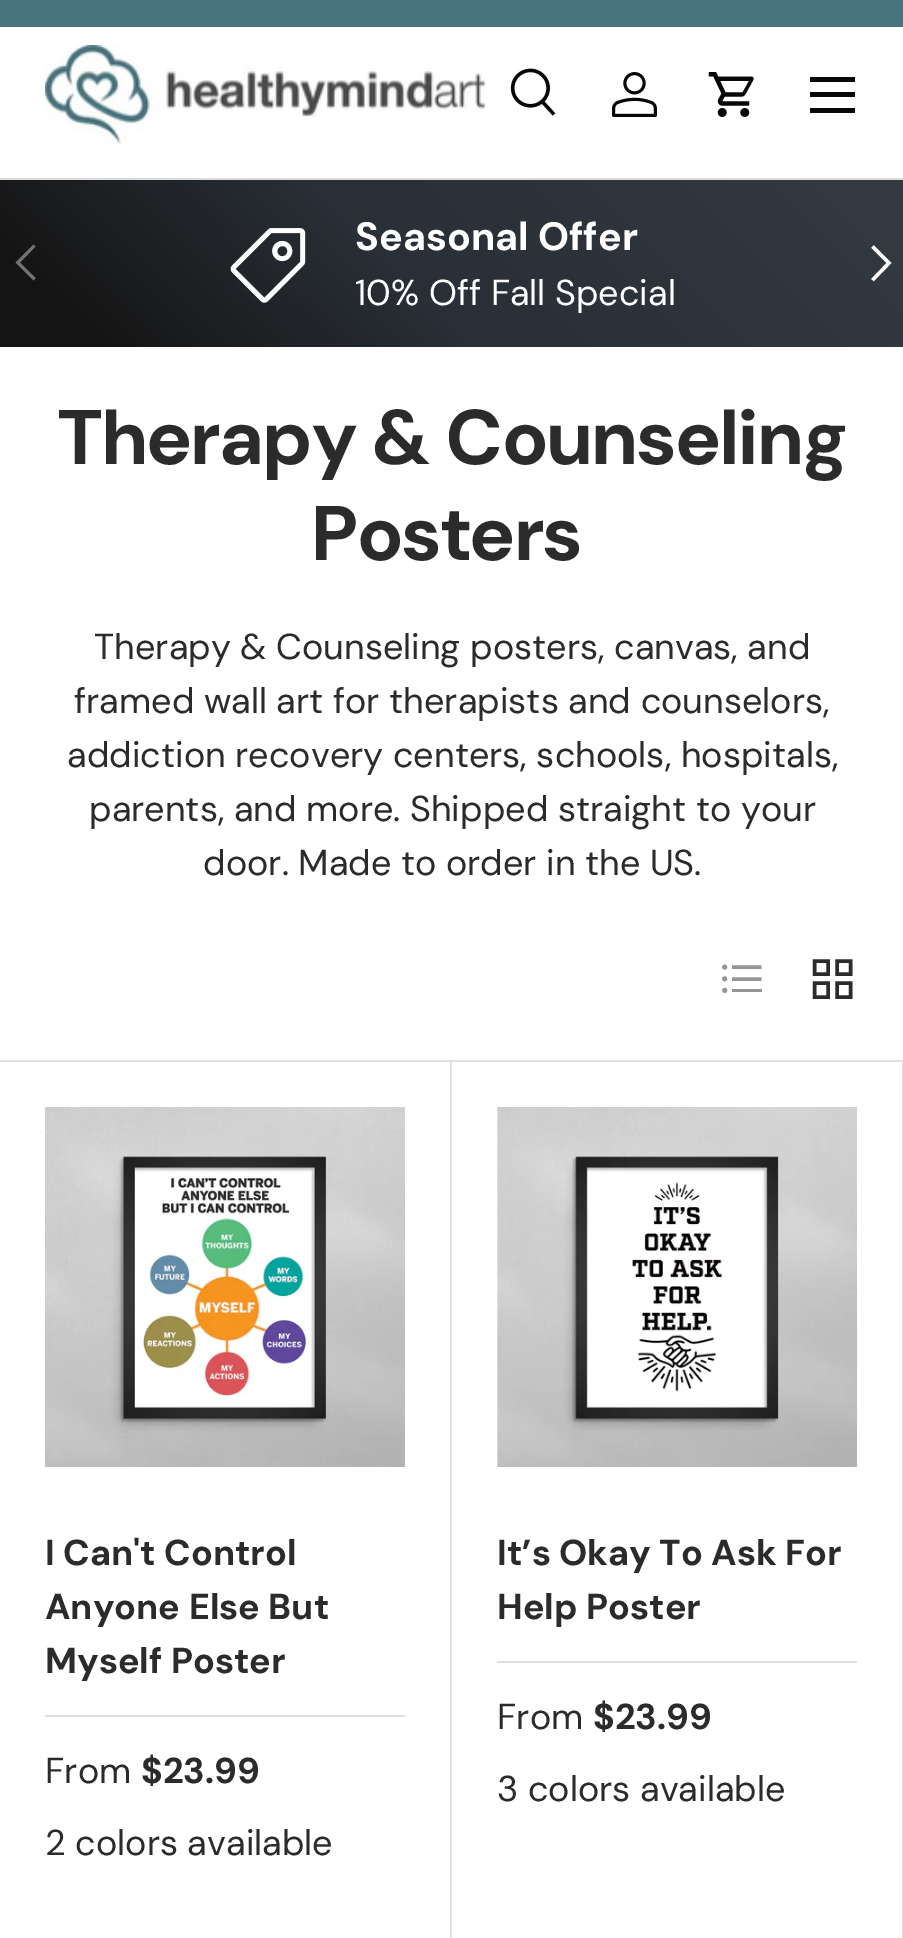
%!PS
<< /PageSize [903 1938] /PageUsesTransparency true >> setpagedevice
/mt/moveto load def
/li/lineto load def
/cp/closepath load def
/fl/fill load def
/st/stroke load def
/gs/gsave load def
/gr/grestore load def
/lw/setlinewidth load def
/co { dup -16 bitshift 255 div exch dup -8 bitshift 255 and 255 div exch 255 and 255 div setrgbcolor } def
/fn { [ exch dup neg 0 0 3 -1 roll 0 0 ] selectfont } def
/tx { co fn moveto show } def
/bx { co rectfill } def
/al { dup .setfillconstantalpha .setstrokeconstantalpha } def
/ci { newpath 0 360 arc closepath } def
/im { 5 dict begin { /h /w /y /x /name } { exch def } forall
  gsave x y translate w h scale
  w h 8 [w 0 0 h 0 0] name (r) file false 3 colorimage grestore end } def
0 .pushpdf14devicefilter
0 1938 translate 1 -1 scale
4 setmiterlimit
0 0 903 1938 16#FFFFFF bx
0 0 903 27 16#48747E bx
0 178 903 2 16#DADADA bx
(media/1.raw) 45 45 441 99 im
(media/2.raw) 510 68 46 48 im
(media/3.raw) 612 72 45 45 im
(media/4.raw) 708 72 46 45 im
810 77 45 5 16#070707 bx
810 108 45 5 16#070707 bx
810 92 45 5 16#070707 bx
gs 0 180 mt 903 180 li 903 347 li 0 347 li cp clip newpath
<< /ShadingType 2 /ColorSpace /DeviceRGB /Coords [720 -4.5 185 531] /Extend [true true] /Function << /FunctionType 3 /Domain [0 1] /Functions [<< /FunctionType 2 /Domain [0 1] /C0 [.196 .224 .251] /C1 [.196 .224 .251] /N 1 >> << /FunctionType 2 /Domain [0 1] /C0 [.196 .224 .251] /C1 [.161 .184 .212] /N 1 >> << /FunctionType 2 /Domain [0 1] /C0 [.161 .184 .212] /C1 [.078 .078 .078] /N 1 >> << /FunctionType 2 /Domain [0 1] /C0 [.078 .078 .078] /C1 [.078 .078 .078] /N 1 >>] /Bounds [.08 .56 .92] /Encode [0 1 0 1 0 1 0 1] >> >> shfill gr
(media/5.raw) 230 228 76 75 im
0.4 al
16#FFFFFF co
15.5 262.5 mt 33.5 244.5 li 35.5 246.5 li 20 262.5 li 35.5 278 li 33.5 280.5 li cp fl
1 al
3.4 lw
872.5 246.5 mt 889 263 li 872.5 280 li st
16#959595 co
724.7 967.1 2.5 ci fl
732 967 mt 761.5 967 li st
724.7 978.8 2.5 ci fl
732 979 mt 761.5 979 li st
724.7 990.4 2.5 ci fl
732 989 30 3 16#959595 bx
16#2A2B2A co
814.5 961 mt 828 961 li 828 974 li 814.5 974 li cp 837 961 mt 850.5 961 li 850.5 974 li 837 974 li cp 814.5 983 mt 828 983 li 828 997 li 814.5 997 li cp 837 983 mt 850.5 983 li 850.5 997 li 837 997 li cp st
0 1060 903 2 16#DFDFDF bx
452 1062 mt 452 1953 li 450 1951 li 450 1062 li cp fl
(media/6.raw) 45 1107 360 360 im
45 1715 360 2 16#DFDFDF bx
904 1062 mt 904 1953 li 902 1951 li 902 1062 li cp fl
497 1107 1 360 16#F4F4F4 bx
(media/7.raw) 497 1107 361 360 im
497 1661 360 2 16#DFDFDF bx
(Seasonal Offer) 355 250 /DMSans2-Bold 39.5 16#FFFFFF tx
(10% Off Fall Special) 355 305 /DMSans-Regular 36 16#FFFFFF tx
(Therapy & Counseling) 58 464 /DMSans-Bold 77.25 16#2A2B2A tx
(Posters) 312 560 /DMSans-Bold 77.25 16#2A2B2A tx
(Therapy & Counseling posters, canvas, and) 94 659 /DMSans-Regular 36 16#2A2B2A tx
(framed wall art for therapists and counselors,) 74 713 /DMSans-Regular 36 16#2A2B2A tx
(addiction recovery centers, schools, hospitals,) 67 767 /DMSans-Regular 36 16#2A2B2A tx
(parents, and more. Shipped straight to your) 89 821 /DMSans-Regular 36 16#2A2B2A tx
(door. Made to order in the US.) 203 875 /DMSans-Regular 36 16#2A2B2A tx
(I Can't Control) 45 1565 /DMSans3-Bold 36 16#2A2B2A tx
(Anyone Else But) 45 1619 /DMSans3-Bold 36 16#2A2B2A tx
(Myself Poster) 45 1673 /DMSans3-Bold 36 16#2A2B2A tx
(From) 45 1783 /DMSans-Regular 36 16#2A2B2A tx
($23.99) 141 1783 /DMSans3-Bold 36 16#2A2B2A tx
(2 colors available) 45 1855 /DMSans-Regular 36 16#2A2B2A tx
(It’s Okay To Ask For) 497 1565 /DMSans3-Bold 36 16#2A2B2A tx
(Help Poster) 497 1619 /DMSans3-Bold 36 16#2A2B2A tx
(From) 497 1729 /DMSans-Regular 36 16#2A2B2A tx
($23.99) 593 1729 /DMSans3-Bold 36 16#2A2B2A tx
(3 colors available) 497 1801 /DMSans-Regular 36 16#2A2B2A tx
.poppdf14devicefilter showpage
